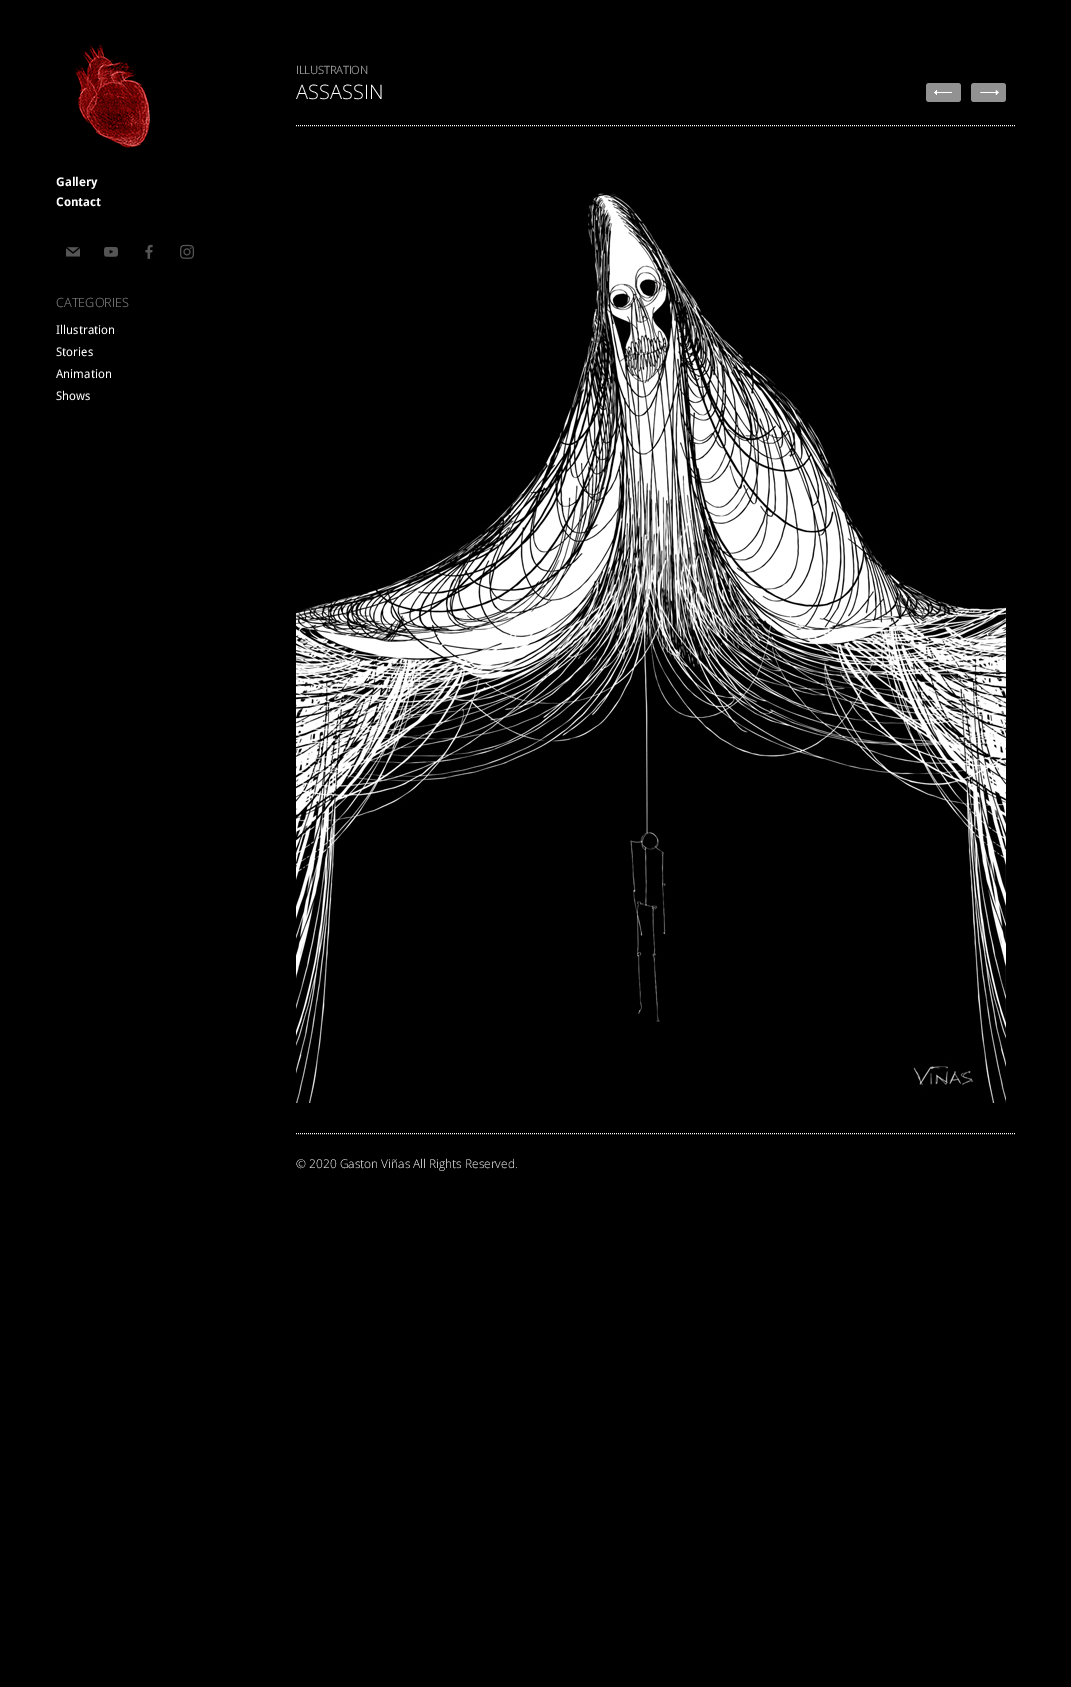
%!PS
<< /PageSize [1071 1687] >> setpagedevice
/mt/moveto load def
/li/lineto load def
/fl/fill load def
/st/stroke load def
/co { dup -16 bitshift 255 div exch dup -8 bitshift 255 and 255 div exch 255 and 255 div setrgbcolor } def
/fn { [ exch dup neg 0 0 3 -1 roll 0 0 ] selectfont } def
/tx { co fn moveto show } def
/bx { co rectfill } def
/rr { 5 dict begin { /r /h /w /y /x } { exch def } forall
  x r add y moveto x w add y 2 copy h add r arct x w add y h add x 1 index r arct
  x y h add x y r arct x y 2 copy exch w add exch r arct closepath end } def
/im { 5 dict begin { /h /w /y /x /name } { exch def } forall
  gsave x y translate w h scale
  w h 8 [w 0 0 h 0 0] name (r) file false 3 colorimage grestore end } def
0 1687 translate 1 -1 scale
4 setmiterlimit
0 0 1071 1687 16#000000 bx
16#FFFFFF co
[1 1] 0 setdash
296 125.5 mt 1016 125.5 li st
16#929292 co
926 83 35 19 3 rr fl
(media/1.raw) 934 90 18 5 im
971 83 35 19 3 rr fl
(media/2.raw) 980 90 19 5 im
(media/3.raw) 296 193 710 910 im
(media/4.raw) 75 44 75 104 im
(media/5.raw) 66 247 14 10 im
(media/6.raw) 104 246 14 11 im
(media/7.raw) 145 244 8 15 im
(media/8.raw) 180 244 14 15 im
16#FFFFFF co
296 1133.5 mt 1016 1133.5 li st
(ILLUSTRATION) 296 74 /OpenSans-Bold 11 16#929292 tx
(ASSASSIN) 296 99 /OpenSans-Light 20 16#FFFFFF tx
(Gallery) 56 186 /DroidSans-Bold 12 16#FFFFFF tx
(Contact) 56 206 /DroidSans-Bold 12 16#FFFFFF tx
(CATEGORIES) 56 307 /OpenSans-Light 12.75 16#929292 tx
(Illustration) 56 334 /DroidSans-Regular 12 16#FFFFFF tx
(Stories) 56 356 /DroidSans-Regular 12 16#FFFFFF tx
(Animation) 56 378 /DroidSans-Regular 12 16#FFFFFF tx
(Shows) 56 400 /DroidSans-Regular 12 16#FFFFFF tx
(© 2020 Gaston Viñas All Rights Reserved.) 296 1168 /OpenSans-Light 12 16#FFFFFF tx
showpage
